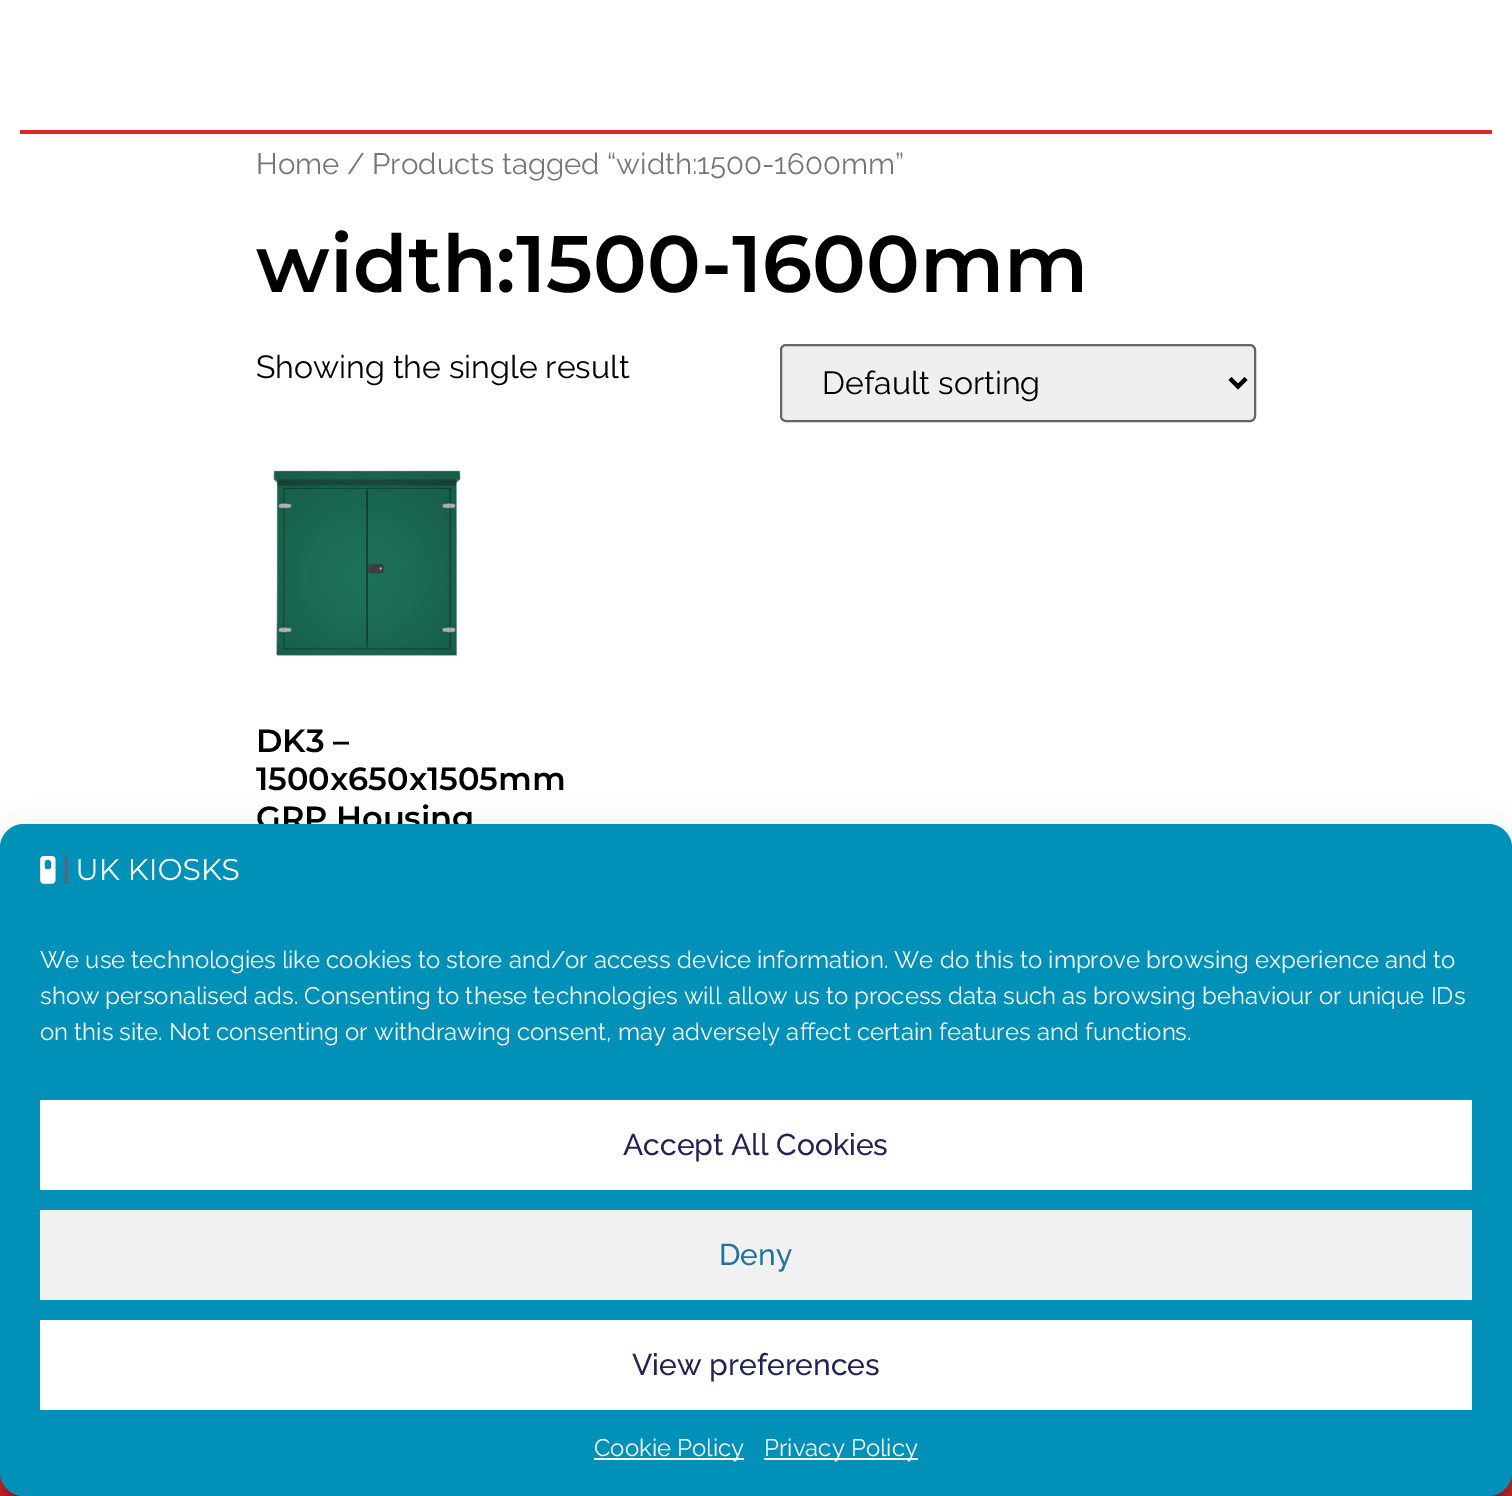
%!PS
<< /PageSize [1512 1496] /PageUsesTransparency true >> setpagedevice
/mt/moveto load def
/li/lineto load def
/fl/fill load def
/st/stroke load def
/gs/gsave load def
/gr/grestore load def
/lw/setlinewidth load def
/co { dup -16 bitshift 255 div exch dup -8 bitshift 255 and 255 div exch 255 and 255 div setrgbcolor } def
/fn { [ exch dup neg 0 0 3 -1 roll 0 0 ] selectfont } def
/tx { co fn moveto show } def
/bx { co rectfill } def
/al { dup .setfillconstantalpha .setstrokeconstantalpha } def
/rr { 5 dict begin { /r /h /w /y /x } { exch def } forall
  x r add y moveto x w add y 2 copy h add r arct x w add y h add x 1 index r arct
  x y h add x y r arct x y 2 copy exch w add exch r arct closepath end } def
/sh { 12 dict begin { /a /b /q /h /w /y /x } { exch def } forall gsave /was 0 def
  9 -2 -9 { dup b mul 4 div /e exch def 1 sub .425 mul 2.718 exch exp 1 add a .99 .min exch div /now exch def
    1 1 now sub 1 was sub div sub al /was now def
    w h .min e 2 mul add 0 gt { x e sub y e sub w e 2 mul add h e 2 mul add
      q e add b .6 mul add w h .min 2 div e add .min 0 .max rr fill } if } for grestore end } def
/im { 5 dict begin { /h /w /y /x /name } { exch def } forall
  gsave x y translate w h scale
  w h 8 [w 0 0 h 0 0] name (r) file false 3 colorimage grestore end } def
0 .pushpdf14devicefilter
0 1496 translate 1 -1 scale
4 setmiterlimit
0 0 1512 1496 16#FFFFFF bx
20 130 1472 4 16#DF2529 bx
16#EFEFEF co
781 345 474 76 5 rr gs fl gr
16#666666 co
2 lw
st
16#000000 co
4 lw
1230 378.5 mt 1238 386.5 li 1246 378.5 li st
(media/1.raw) 273 466 188 193 im
0 1472 1512 24 16#DF2529 bx
16#000000 co
0 836 1512 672 24 6 .23 sh
0 844 1512 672 24 20 .19 sh
(Home / Products tagged “width:1500-1600mm”) 256 174 /Raleway-Regular 29.4 16#767676 tx
(width:1500-1600mm) 256 292 /Montserrat-SemiBold 80 16#000000 tx
(Showing the single result) 256 378 /Raleway-Regular 32 16#000000 tx
(Default sorting) 822 394 /Raleway-Regular 32 16#000000 tx
(DK3 –) 256 752 /Montserrat-SemiBold 32 16#000000 tx
(1500x650x1505mm) 256 790 /Montserrat-SemiBold 32 16#000000 tx
(GRP Housing) 256 829 /Montserrat-SemiBold 32 16#000000 tx
16#0090B8 co
0 824 1512 672 24 rr fl
(media/2.raw) 40 856 199 28 im
(We use technologies like cookies to store and/or access device information. We do this to improve browsing experience and to) 40 968 /Raleway-Regular 24 16#FFFFFF tx
(show personalised ads. Consenting to these technologies will allow us to process data such as browsing behaviour or unique IDs) 40 1004 /Raleway-Regular 24 16#FFFFFF tx
(on this site. Not consenting or withdrawing consent, may adversely affect certain features and functions.) 40 1040 /Raleway-Regular 24 16#FFFFFF tx
40 1100 1432 90 16#FFFFFF bx
(Accept All Cookies) 623 1155 /Raleway-Medium 30 16#202354 tx
40 1210 1432 90 16#F1F1F1 bx
(Deny) 719 1265 /Raleway-Medium 30 16#21759B tx
40 1320 1432 90 16#FFFFFF bx
(View preferences) 632 1375 /Raleway-Medium 30 16#202354 tx
594 1458 150 2 16#FFFFFF bx
(Cookie Policy) 594 1456 /Raleway-Regular 24 16#FFFFFF tx
764 1458 154 2 16#FFFFFF bx
(Privacy Policy) 764 1456 /Raleway-Regular 24 16#FFFFFF tx
.poppdf14devicefilter showpage
